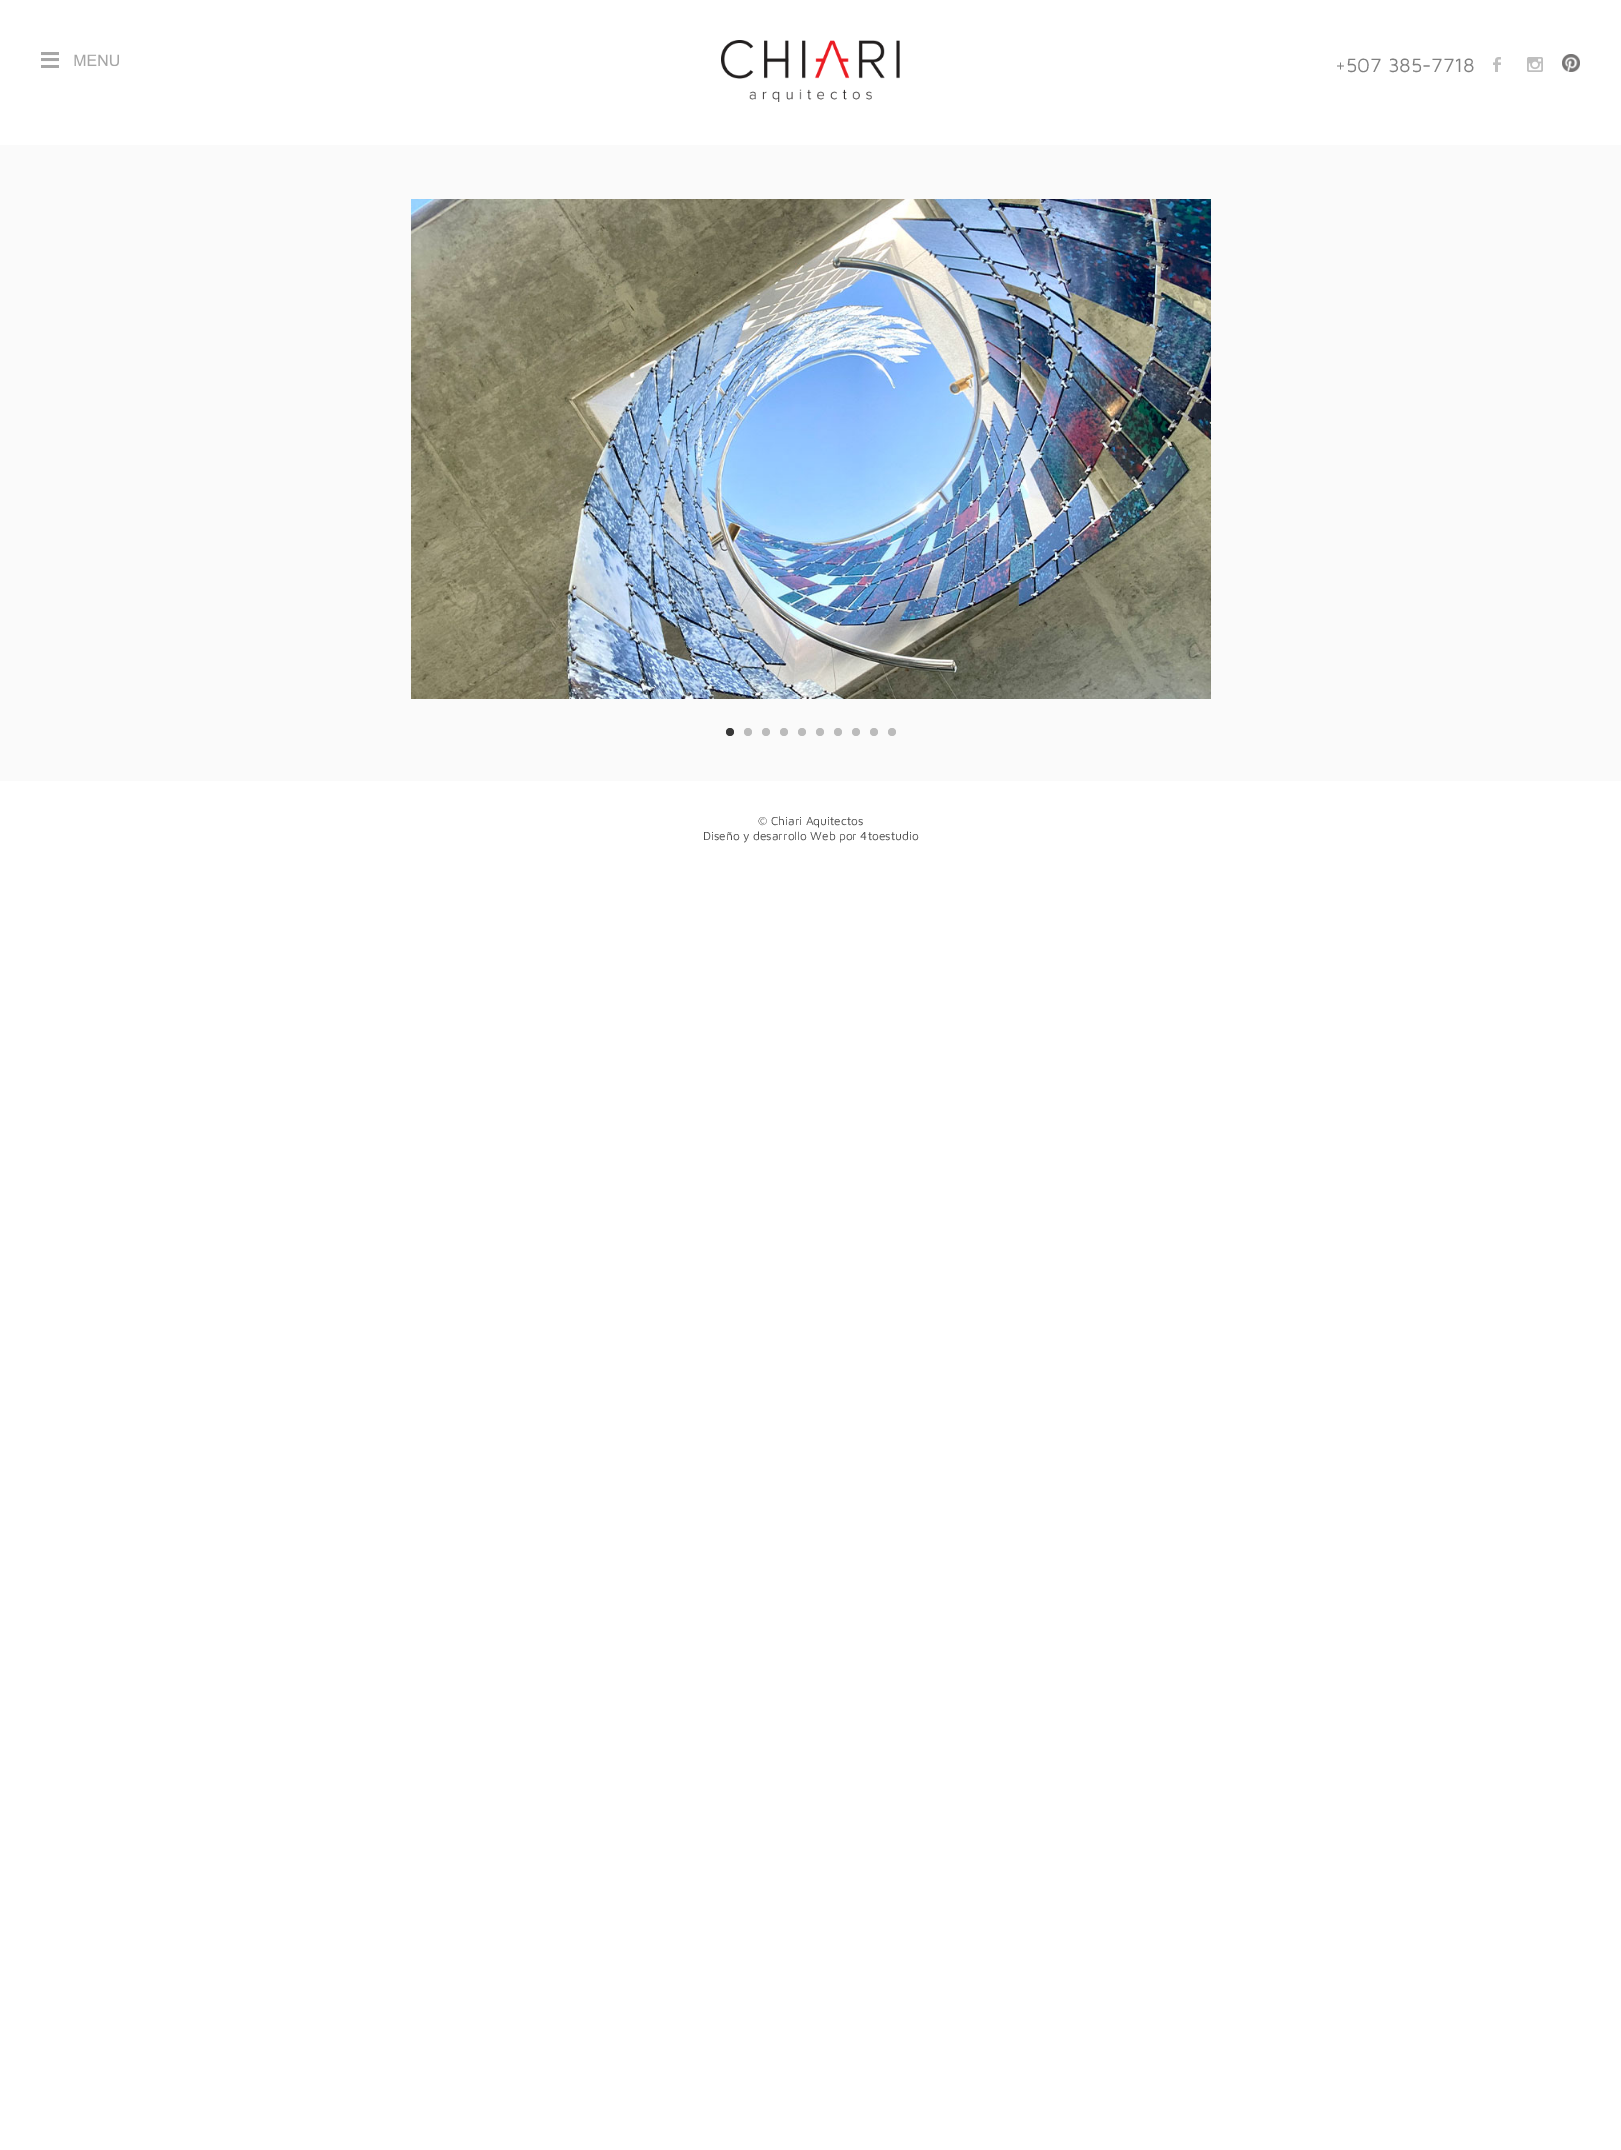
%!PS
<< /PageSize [1621 2150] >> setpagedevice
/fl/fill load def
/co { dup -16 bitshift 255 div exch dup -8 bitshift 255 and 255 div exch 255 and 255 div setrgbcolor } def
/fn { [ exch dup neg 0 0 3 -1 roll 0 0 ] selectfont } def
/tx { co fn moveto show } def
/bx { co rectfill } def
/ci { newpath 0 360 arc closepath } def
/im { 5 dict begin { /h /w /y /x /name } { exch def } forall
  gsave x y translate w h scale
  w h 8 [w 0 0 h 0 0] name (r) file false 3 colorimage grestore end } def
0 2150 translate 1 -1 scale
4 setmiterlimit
0 0 1621 2150 16#FFFFFF bx
(media/1.raw) 41 52 78 16 im
(media/2.raw) 721 40 179 62 im
(media/3.raw) 1493 57 8 15 im
(media/4.raw) 1527 57 16 15 im
(media/5.raw) 1562 54 18 18 im
0 145 1621 636 16#FAFAFA bx
(media/6.raw) 411 199 800 500 im
16#383838 co
730 732 4 ci fl
16#BBBBBB co
748 732 4 ci fl
766 732 4 ci fl
784 732 4 ci fl
802 732 4 ci fl
820 732 4 ci fl
838 732 4 ci fl
856 732 4 ci fl
874 732 4 ci fl
892 732 4 ci fl
(+507 385-7718) 1335 72 /MavenPro-Regular 20 16#808080 tx
(© Chiari Aquitectos) 758 825 /MavenPro-Regular 12 16#4D4D4D tx
(Diseño y desarrollo Web por 4toestudio) 703 840 /MavenPro-Regular 12 16#4D4D4D tx
showpage
